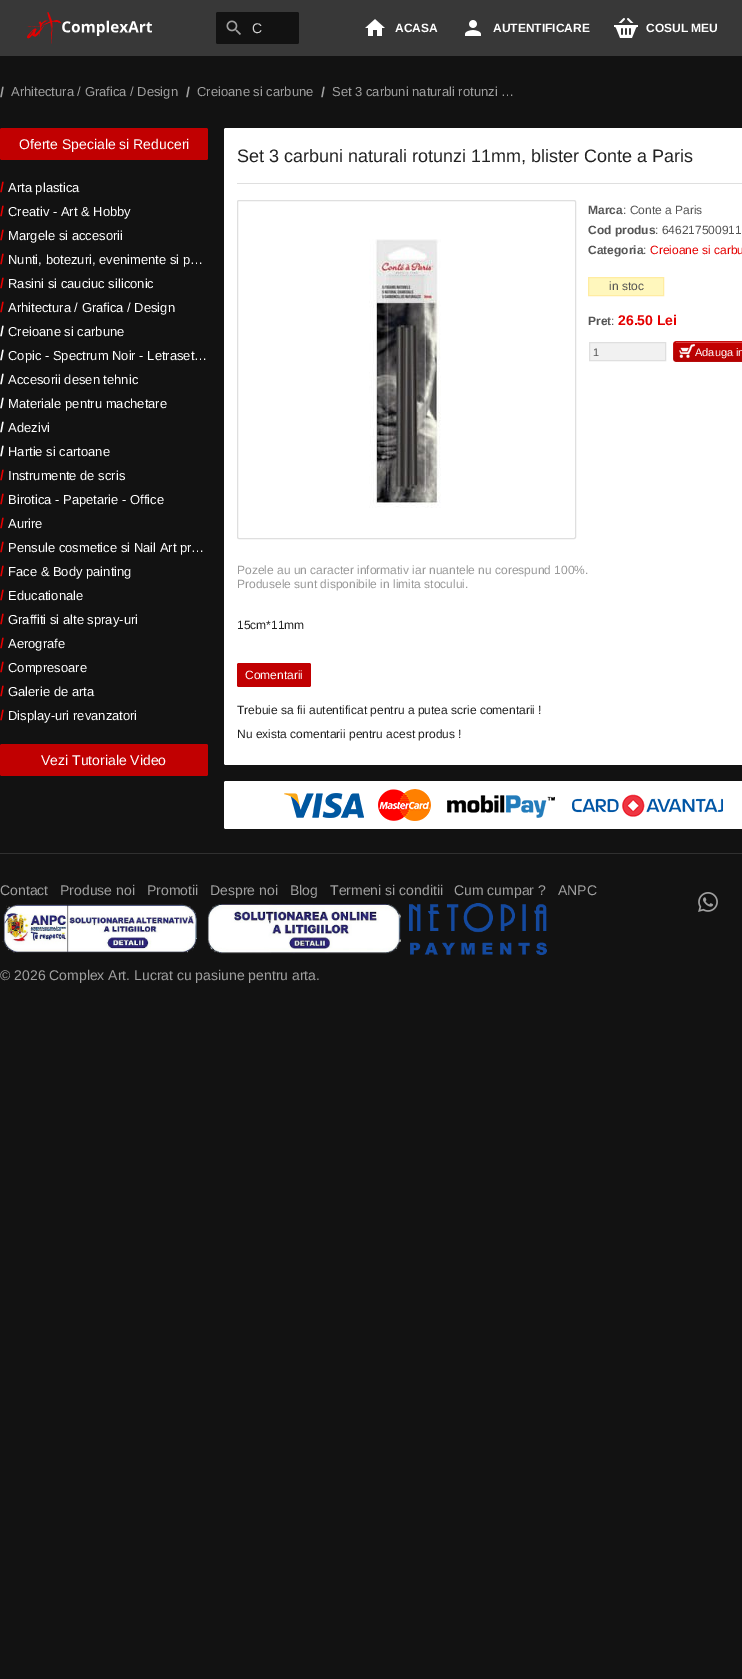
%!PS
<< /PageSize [742 1679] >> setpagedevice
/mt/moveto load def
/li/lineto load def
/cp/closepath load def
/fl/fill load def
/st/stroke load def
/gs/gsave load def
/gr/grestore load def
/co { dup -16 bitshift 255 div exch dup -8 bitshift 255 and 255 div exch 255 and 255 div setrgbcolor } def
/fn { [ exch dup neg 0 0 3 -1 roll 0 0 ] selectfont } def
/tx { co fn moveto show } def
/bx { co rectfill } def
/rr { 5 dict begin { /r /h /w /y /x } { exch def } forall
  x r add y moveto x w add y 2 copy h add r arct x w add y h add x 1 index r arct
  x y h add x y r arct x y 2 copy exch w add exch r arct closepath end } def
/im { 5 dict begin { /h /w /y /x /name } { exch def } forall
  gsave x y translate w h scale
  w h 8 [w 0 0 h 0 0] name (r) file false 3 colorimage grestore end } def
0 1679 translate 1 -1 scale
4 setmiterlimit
0 0 742 1679 16#121212 bx
0 0 742 56 16#383838 bx
(media/1.raw) 27 12 125 32 im
16#121212 co
216 12 83 32 2 rr fl
(media/2.raw) 226 20 15 15 im
(media/3.raw) 365 19 20 17 im
(media/4.raw) 465 20 16 16 im
(media/5.raw) 614 18 24 20 im
16#C10001 co
0 128 208 32 2 rr fl
0 744 208 32 2 rr fl
16#FFFFFF co
224 128 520 637 2 rr fl
237 183 505 1 16#DFDFDF bx
237.5 200.5 338 338 1.5 rr st
(media/6.raw) 369 239 72 269 im
16#FFF7BD co
588.5 277.5 mt 663.5 277.5 li 663.5 295.5 li 588.5 295.5 li cp gs fl gr
16#FFECA1 co
st
16#F1F1F1 co
589.5 342.5 mt 665.5 342.5 li 665.5 360.5 li 589.5 360.5 li cp gs fl gr
16#DFDFDF co
st
(media/7.raw) 673 341 69 21 im
16#C10001 co
237 663 74 24 2 rr fl
16#FFFFFF co
224 781 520 48 2 rr fl
(media/8.raw) 284 789 439 32 im
0 853 742 1 16#303030 bx
(media/9.raw) 2 903 195 50 im
(media/10.raw) 207 904 194 50 im
(media/11.raw) 409 903 138 52 im
(media/12.raw) 698 892 20 20 im
(C) 252 33 /LiberationSans-Regular 14 16#D0D0D0 tx
(ACASA) 395 32 /LiberationSans-Bold 12 16#FFFFFF tx
(AUTENTIFICARE) 493 32 /LiberationSans-Bold 12 16#FFFFFF tx
(COSUL MEU) 646 32 /LiberationSans-Bold 12 16#FFFFFF tx
(/) 0 97 /LiberationSans-Bold 14 16#A0A0A0 tx
(Arhitectura / Grafica / Design) 11 96 /LiberationSans-Regular 13 16#A0A0A0 tx
(/) 186 97 /LiberationSans-Bold 14 16#A0A0A0 tx
(Creioane si carbune) 197 96 /LiberationSans-Regular 13 16#A0A0A0 tx
(/) 321 97 /LiberationSans-Bold 14 16#A0A0A0 tx
(Set 3 carbuni naturali rotunzi …) 332 96 /LiberationSans-Regular 13 16#A0A0A0 tx
(Oferte Speciale si Reduceri) 19 149 /LiberationSans-Regular 14 16#FFFFFF tx
(/) 0 192 /LiberationSans-Bold 14 16#E50000 tx
(Arta plastica) 8 192 /LiberationSans-Regular 13 16#FFFFFF tx
(/) 0 216 /LiberationSans-Bold 14 16#E50000 tx
(Creativ - Art & Hobby) 8 216 /LiberationSans-Regular 13 16#FFFFFF tx
(/) 0 240 /LiberationSans-Bold 14 16#E50000 tx
(Margele si accesorii) 8 240 /LiberationSans-Regular 13 16#FFFFFF tx
(/) 0 264 /LiberationSans-Bold 14 16#E50000 tx
(Nunti, botezuri, evenimente si p…) 8 264 /LiberationSans-Regular 13 16#FFFFFF tx
(/) 0 288 /LiberationSans-Bold 14 16#E50000 tx
(Rasini si cauciuc siliconic) 8 288 /LiberationSans-Regular 13 16#FFFFFF tx
(/) 0 312 /LiberationSans-Bold 14 16#E50000 tx
(Arhitectura / Grafica / Design) 8 312 /LiberationSans-Regular 13 16#FFFFFF tx
(/) 0 336 /LiberationSans-Bold 14 16#FFFFFF tx
(Creioane si carbune) 8 336 /LiberationSans-Regular 13 16#FFFFFF tx
(/) 0 360 /LiberationSans-Bold 14 16#FFFFFF tx
(Copic - Spectrum Noir - Letraset…) 8 360 /LiberationSans-Regular 13 16#FFFFFF tx
(/) 0 384 /LiberationSans-Bold 14 16#FFFFFF tx
(Accesorii desen tehnic) 8 384 /LiberationSans-Regular 13 16#FFFFFF tx
(/) 0 408 /LiberationSans-Bold 14 16#FFFFFF tx
(Materiale pentru machetare) 8 408 /LiberationSans-Regular 13 16#FFFFFF tx
(/) 0 432 /LiberationSans-Bold 14 16#FFFFFF tx
(Adezivi) 8 432 /LiberationSans-Regular 13 16#FFFFFF tx
(/) 0 456 /LiberationSans-Bold 14 16#FFFFFF tx
(Hartie si cartoane) 8 456 /LiberationSans-Regular 13 16#FFFFFF tx
(/) 0 480 /LiberationSans-Bold 14 16#E50000 tx
(Instrumente de scris) 8 480 /LiberationSans-Regular 13 16#FFFFFF tx
(/) 0 504 /LiberationSans-Bold 14 16#E50000 tx
(Birotica - Papetarie - Office) 8 504 /LiberationSans-Regular 13 16#FFFFFF tx
(/) 0 528 /LiberationSans-Bold 14 16#E50000 tx
(Aurire) 8 528 /LiberationSans-Regular 13 16#FFFFFF tx
(/) 0 552 /LiberationSans-Bold 14 16#E50000 tx
(Pensule cosmetice si Nail Art pr…) 8 552 /LiberationSans-Regular 13 16#FFFFFF tx
(/) 0 576 /LiberationSans-Bold 14 16#E50000 tx
(Face & Body painting) 8 576 /LiberationSans-Regular 13 16#FFFFFF tx
(/) 0 600 /LiberationSans-Bold 14 16#E50000 tx
(Educationale) 8 600 /LiberationSans-Regular 13 16#FFFFFF tx
(/) 0 624 /LiberationSans-Bold 14 16#E50000 tx
(Graffiti si alte spray-uri) 8 624 /LiberationSans-Regular 13 16#FFFFFF tx
(/) 0 648 /LiberationSans-Bold 14 16#E50000 tx
(Aerografe) 8 648 /LiberationSans-Regular 13 16#FFFFFF tx
(/) 0 672 /LiberationSans-Bold 14 16#E50000 tx
(Compresoare) 8 672 /LiberationSans-Regular 13 16#FFFFFF tx
(/) 0 696 /LiberationSans-Bold 14 16#E50000 tx
(Galerie de arta) 8 696 /LiberationSans-Regular 13 16#FFFFFF tx
(/) 0 720 /LiberationSans-Bold 14 16#E50000 tx
(Display-uri revanzatori) 8 720 /LiberationSans-Regular 13 16#FFFFFF tx
(Vezi Tutoriale Video) 41 765 /LiberationSans-Regular 14 16#FFFFFF tx
(Set 3 carbuni naturali rotunzi 11mm, blister Conte a Paris) 237 162 /LiberationSans-Regular 18 16#222222 tx
(Marca) 588 214 /LiberationSans-Bold 12 16#555555 tx
(: Conte a Paris) 623 214 /LiberationSans-Regular 12 16#555555 tx
(Cod produs) 588 234 /LiberationSans-Bold 12 16#555555 tx
(: 646217500911) 655 234 /LiberationSans-Regular 12 16#555555 tx
(Categoria) 588 254 /LiberationSans-Bold 12 16#555555 tx
(:) 643 254 /LiberationSans-Regular 12 16#555555 tx
(Creioane si carbu) 650 254 /LiberationSans-Regular 12 16#E50000 tx
(in stoc) 609 290 /LiberationSans-Regular 12 16#555555 tx
(Pret) 588 325 /LiberationSans-Bold 12 16#555555 tx
(:) 611 325 /LiberationSans-Regular 12 16#555555 tx
(26.50 Lei) 618 325 /LiberationSans-Bold 14 16#E50000 tx
(1) 593 356 /LiberationSans-Regular 11 16#555555 tx
(Adauga in) 695 356 /LiberationSans-Regular 11 16#FFFFFF tx
(Pozele au un caracter informativ iar nuantele nu corespund 100%.) 237 574 /LiberationSans-Regular 12 16#999999 tx
(Produsele sunt disponibile in limita stocului.) 237 588 /LiberationSans-Regular 12 16#999999 tx
(15cm*11mm) 237 629 /LiberationSans-Regular 12 16#222222 tx
(Comentarii) 245 679 /LiberationSans-Regular 12 16#FFFFFF tx
(Trebuie sa fii autentificat pentru a putea scrie comentarii !) 237 714 /LiberationSans-Regular 12 16#222222 tx
(Nu exista comentarii pentru acest produs !) 237 738 /LiberationSans-Regular 12 16#222222 tx
(Contact) 0 895 /LiberationSans-Regular 14 16#A0A0A0 tx
(Produse noi) 60 895 /LiberationSans-Regular 14 16#A0A0A0 tx
(Promotii) 147 895 /LiberationSans-Regular 14 16#A0A0A0 tx
(Despre noi) 210 895 /LiberationSans-Regular 14 16#A0A0A0 tx
(Blog) 290 895 /LiberationSans-Regular 14 16#A0A0A0 tx
(Termeni si conditii) 330 895 /LiberationSans-Regular 14 16#A0A0A0 tx
(Cum cumpar ?) 454 895 /LiberationSans-Regular 14 16#A0A0A0 tx
(ANPC) 558 895 /LiberationSans-Regular 14 16#A0A0A0 tx
(© 2026 Complex Art. Lucrat cu pasiune pentru arta.) 0 980 /LiberationSans-Regular 14 16#A0A0A0 tx
showpage
